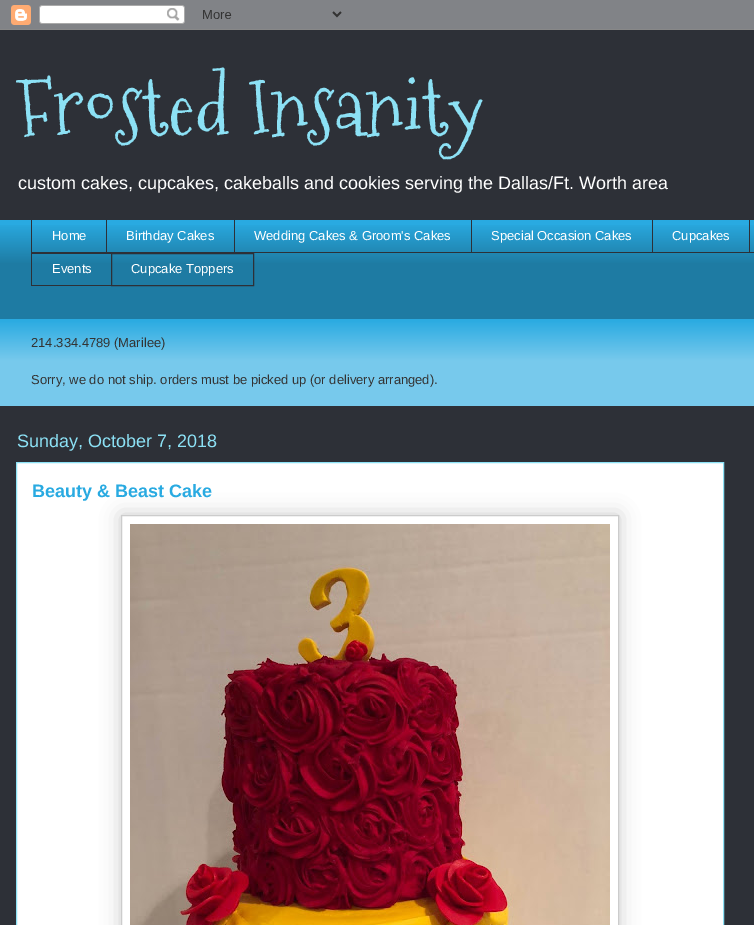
%!PS
<< /PageSize [754 925] /PageUsesTransparency true >> setpagedevice
/mt/moveto load def
/li/lineto load def
/cp/closepath load def
/fl/fill load def
/st/stroke load def
/gs/gsave load def
/gr/grestore load def
/co { dup -16 bitshift 255 div exch dup -8 bitshift 255 and 255 div exch 255 and 255 div setrgbcolor } def
/fn { [ exch dup neg 0 0 3 -1 roll 0 0 ] selectfont } def
/tx { co fn moveto show } def
/bx { co rectfill } def
/al { dup .setfillconstantalpha .setstrokeconstantalpha } def
/rr { 5 dict begin { /r /h /w /y /x } { exch def } forall
  x r add y moveto x w add y 2 copy h add r arct x w add y h add x 1 index r arct
  x y h add x y r arct x y 2 copy exch w add exch r arct closepath end } def
/sh { 12 dict begin { /a /b /q /h /w /y /x } { exch def } forall gsave /was 0 def
  9 -2 -9 { dup b mul 4 div /e exch def 1 sub .425 mul 2.718 exch exp 1 add a .99 .min exch div /now exch def
    1 1 now sub 1 was sub div sub al /was now def
    w h .min e 2 mul add 0 gt { x e sub y e sub w e 2 mul add h e 2 mul add
      q e add b .6 mul add w h .min 2 div e add .min 0 .max rr fill } if } for grestore end } def
/im { 5 dict begin { /h /w /y /x /name } { exch def } forall
  gsave x y translate w h scale
  w h 8 [w 0 0 h 0 0] name (r) file false 3 colorimage grestore end } def
0 .pushpdf14devicefilter
0 925 translate 1 -1 scale
4 setmiterlimit
0 0 754 925 16#2D3037 bx
(media/1.raw) 0 0 754 30 im
0 220 754 186 16#29AAE1 bx
(media/2.raw) 0 225 754 181 im
31 252 723 1 16#2D3037 bx
31 219 1 34 16#2D3037 bx
106 219 1 34 16#2D3037 bx
234 219 1 34 16#2D3037 bx
471 219 1 34 16#2D3037 bx
652 219 1 34 16#2D3037 bx
749 219 1 34 16#2D3037 bx
31 253 80 1 16#2D3037 bx
31 285 80 1 16#2D3037 bx
31 253 1 33 16#2D3037 bx
111.5 253.5 142 32 rectstroke
16#FFFFFF co
16.5 462.5 mt 723.5 462.5 li 723.5 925.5 li 16.5 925.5 li cp gs fl gr
16#8CE1F5 co
st
gs
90 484 mt 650 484 li 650 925 li 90 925 li cp 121 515 mt 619 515 li 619 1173 li 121 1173 li cp eoclip newpath
16#000000 co
121 515 498 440 0 10 .2 sh
gr
16#CCCCCC co
121.5 515.5 497 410 rectstroke
(media/3.raw) 130 524 480 401 im
(Frosted Insanity) 16 135 /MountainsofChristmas-Regular 80 16#8CE1F5 tx
(custom cakes, cupcakes, cakeballs and cookies serving the Dallas/Ft. Worth area) 18 189 /LiberationSans-Regular 18 16#FFFFFF tx
(Home) 52 240 /LiberationSans-Regular 13 16#FFFFFF tx
(Birthday Cakes) 126 240 /LiberationSans-Regular 13 16#FFFFFF tx
(Wedding Cakes & Groom's Cakes) 254 240 /LiberationSans-Regular 13 16#FFFFFF tx
(Special Occasion Cakes) 491 240 /LiberationSans-Regular 13 16#FFFFFF tx
(Cupcakes) 672 240 /LiberationSans-Regular 13 16#FFFFFF tx
(Events) 52 273 /LiberationSans-Regular 13 16#FFFFFF tx
(Cupcake Toppers) 131 273 /LiberationSans-Regular 13 16#FFFFFF tx
(214.334.4789 \(Marilee\)) 31 347 /LiberationSans-Regular 13 16#333333 tx
(Sorry, we do not ship. orders must be picked up \(or delivery arranged\).) 31 384 /LiberationSans-Regular 13 16#333333 tx
(Sunday, October 7, 2018) 17 447 /LiberationSans-Regular 18 16#8CE1F5 tx
(Beauty & Beast Cake) 32 497 /LiberationSans-Bold 18 16#29AAE1 tx
.poppdf14devicefilter showpage
